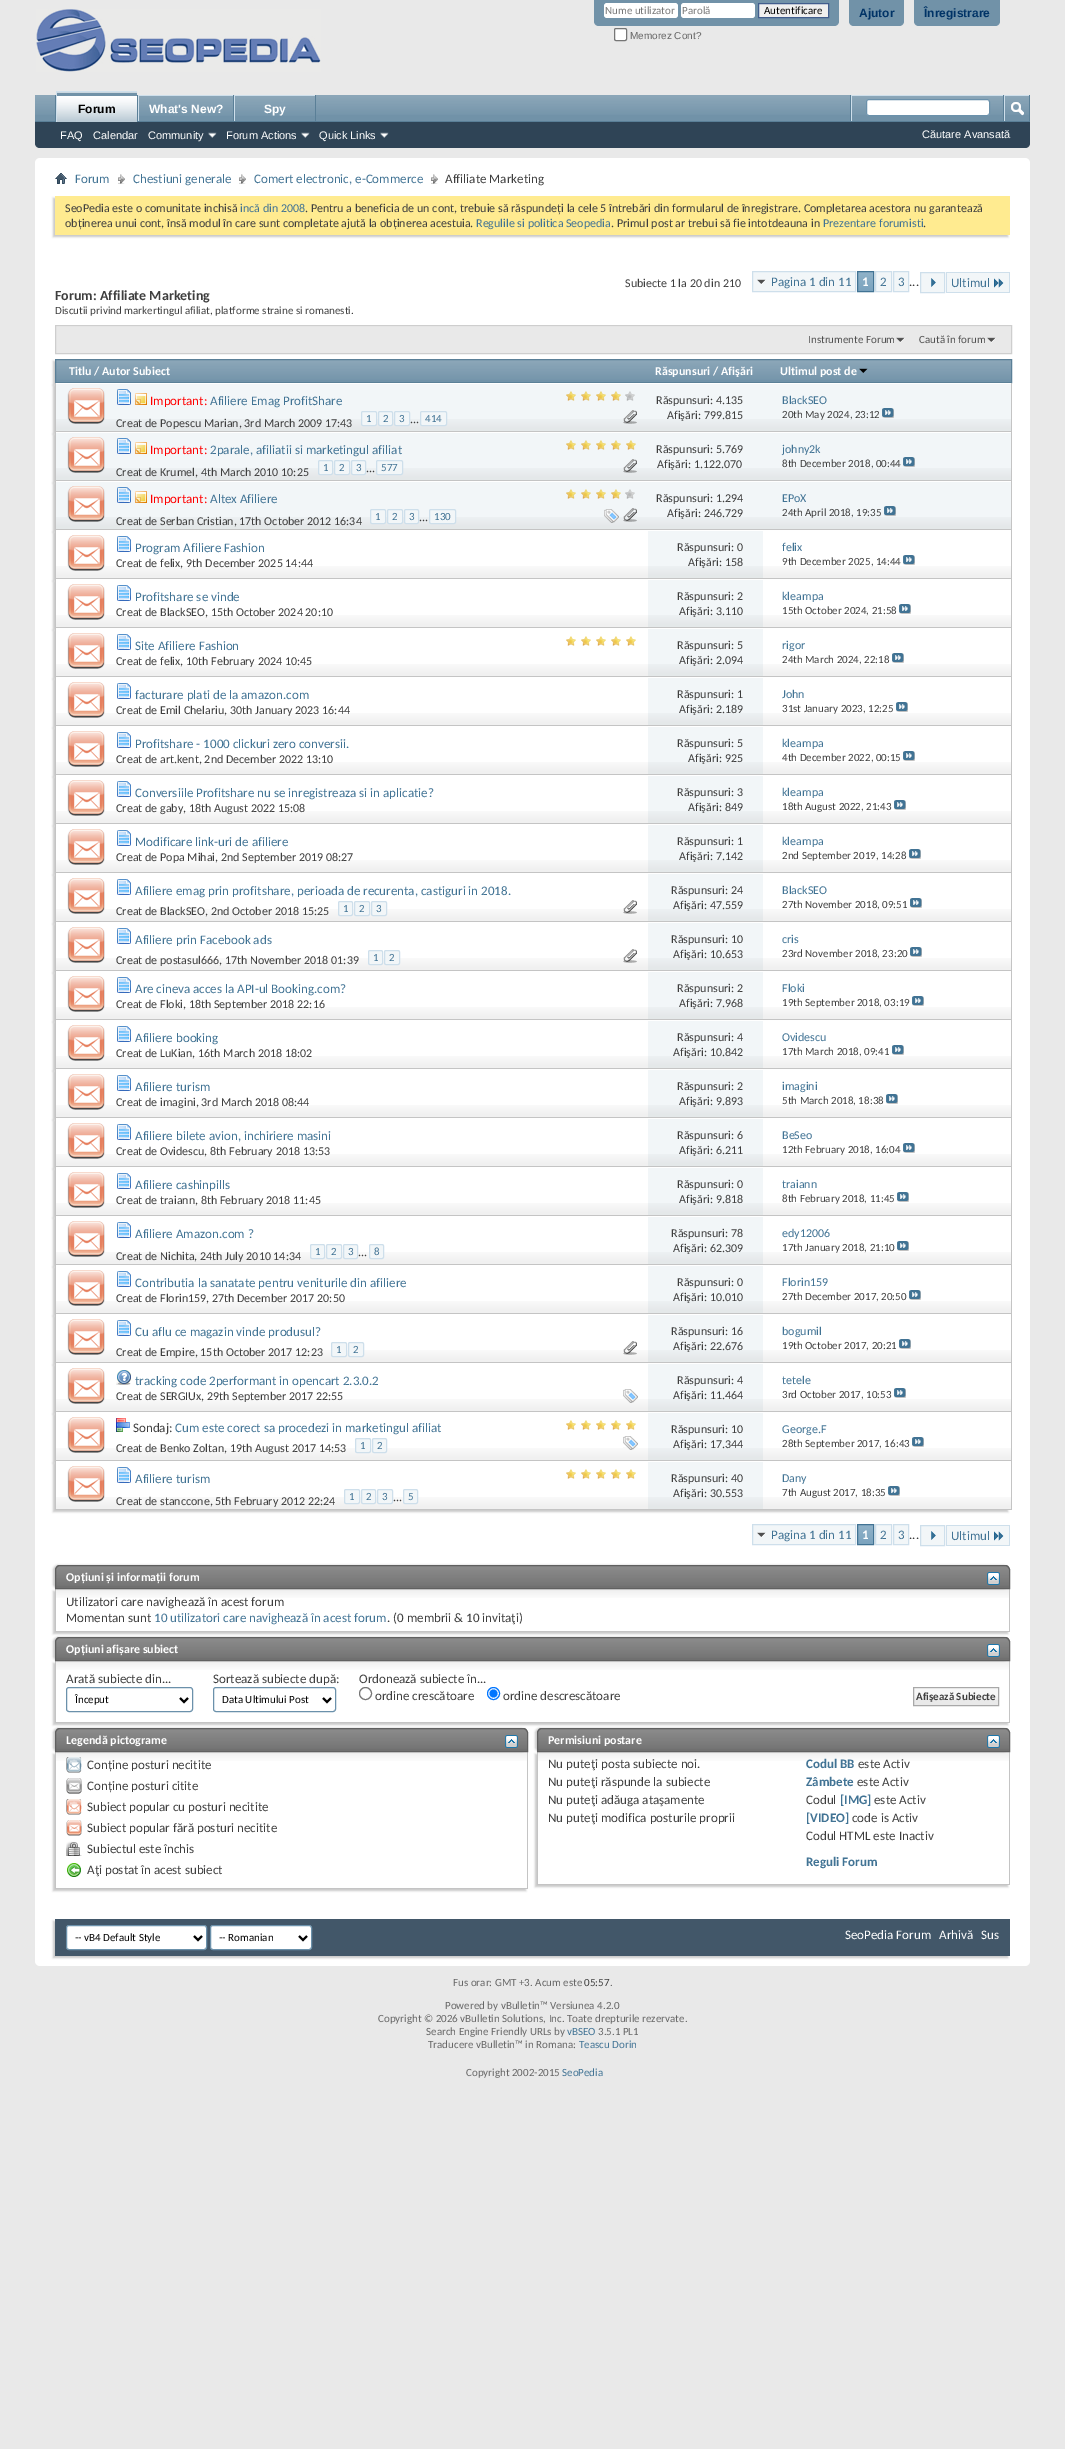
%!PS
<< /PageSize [1065 2449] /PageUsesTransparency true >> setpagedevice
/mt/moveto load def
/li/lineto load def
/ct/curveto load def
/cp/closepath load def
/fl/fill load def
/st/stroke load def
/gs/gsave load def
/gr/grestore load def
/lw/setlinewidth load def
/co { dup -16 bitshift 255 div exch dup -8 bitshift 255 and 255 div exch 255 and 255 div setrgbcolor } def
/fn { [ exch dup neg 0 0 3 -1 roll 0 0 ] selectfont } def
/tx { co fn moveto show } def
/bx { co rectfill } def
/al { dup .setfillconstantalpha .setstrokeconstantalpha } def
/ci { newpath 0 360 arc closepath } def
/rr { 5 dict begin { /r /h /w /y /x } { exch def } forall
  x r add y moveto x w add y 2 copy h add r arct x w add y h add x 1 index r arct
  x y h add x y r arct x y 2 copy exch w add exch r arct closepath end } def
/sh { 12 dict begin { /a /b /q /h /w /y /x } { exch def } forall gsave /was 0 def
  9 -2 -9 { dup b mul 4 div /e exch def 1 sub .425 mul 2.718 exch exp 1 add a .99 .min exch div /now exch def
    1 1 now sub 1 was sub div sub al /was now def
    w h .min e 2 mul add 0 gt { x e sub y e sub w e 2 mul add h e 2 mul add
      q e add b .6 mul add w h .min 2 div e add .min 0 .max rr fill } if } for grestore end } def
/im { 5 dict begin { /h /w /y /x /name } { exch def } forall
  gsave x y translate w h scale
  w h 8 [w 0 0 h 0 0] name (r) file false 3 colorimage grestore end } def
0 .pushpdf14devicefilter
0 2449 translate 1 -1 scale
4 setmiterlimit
0 0 1065 2449 16#E9E9E9 bx
(media/1.raw) 36 9 285 63 im
16#7192A8 co
594 0 mt 839 0 li 839 21 li 839 24 837 26 834 26 ct 599 26 li 596 26 594 24 594 21 ct cp fl
16#FFFFFF co
604 3 74 15 3 rr fl
681 3 74 15 3 rr fl
16#EFEFEF co
758.5 3.5 mt 828.5 3.5 li 828.5 17.5 li 758.5 17.5 li cp gs fl gr
16#415D8D co
st
16#FFFFFF co
614.5 28.5 12 12 1.5 rr gs fl gr
16#767676 co
st
16#7192A8 co
849 0 mt 904 0 li 904 21 li 904 24 902 26 899 26 ct 854 26 li 851 26 849 24 849 21 ct cp fl
914 0 mt 1000 0 li 1000 21 li 1000 24 998 26 995 26 ct 919 26 li 916 26 914 24 914 21 ct cp fl
16#2F4456 co
35 95 mt 1030 95 li 1030 143 li 1030 146 1028 148 1025 148 ct 40 148 li 37 148 35 146 35 143 ct cp fl
35 95 994 26 16#7192A8 bx
(media/2.raw) 35 95 994 20 im
137 95 1 26 16#5A7F97 bx
55 95 1 26 16#5A7F97 bx
233 95 1 27 16#5A7F97 bx
138 95 95 1 16#CEDFEB bx
138 95 1 27 16#CEDFEB bx
315 95 1 27 16#5A7F97 bx
234 95 81 1 16#CEDFEB bx
234 95 1 27 16#CEDFEB bx
35 121 995 1 16#5A7F97 bx
57 92 80 30 16#7192A8 bx
(media/3.raw) 57 92 80 30 im
56 91 81 1 16#CEDFEB bx
56 91 1 31 16#CEDFEB bx
(media/4.raw) 208 132 9 6 im
(media/4.raw) 301 132 9 6 im
(media/4.raw) 380 132 9 6 im
139 96 94 19 16#7192A8 bx
(media/5.raw) 139 96 94 20 im
235 96 80 19 16#7192A8 bx
(media/6.raw) 235 96 80 20 im
850 95 1 26 16#5A7F97 bx
851 95 152 1 16#CEDFEB bx
851 95 1 26 16#CEDFEB bx
16#FFFFFF co
866.5 99.5 123 16 2.5 rr gs fl gr
16#6B91AB co
st
1029 95 1 26 16#5A7F97 bx
1003 95 1 26 16#5A7F97 bx
1004 95 25 1 16#CEDFEB bx
1004 95 1 26 16#CEDFEB bx
(media/7.raw) 1011 102 13 14 im
16#FFFFFF co
35 158 995 1808 5 rr fl
(media/8.raw) 55 173 12 11 im
(media/9.raw) 118 174 7 10 im
(media/9.raw) 239 174 7 10 im
(media/9.raw) 431 174 7 10 im
16#C8C8C8 co
53 198 955 39 0 1 1 sh
55 196 955 39 16#FFEB90 bx
753 272 102 19 16#F2F6F8 bx
(media/10.raw) 757 279 9 6 im
16#CEDFEB co
752.5 271.5 103 20 rectstroke
858 272 15 19 16#759FBB bx
(media/11.raw) 858 272 15 19 im
16#417394 co
857.5 271.5 16 20 rectstroke
16#F2F6F8 co
875.5 271.5 mt 891.5 271.5 li 891.5 291.5 li 875.5 291.5 li cp gs fl gr
16#CEDFEB co
st
16#F2F6F8 co
893.5 271.5 mt 908.5 271.5 li 908.5 291.5 li 893.5 291.5 li cp gs fl gr
16#CEDFEB co
st
16#F2F6F8 co
920.5 272.5 mt 944.5 272.5 li 944.5 292.5 li 920.5 292.5 li cp gs fl gr
16#CEDFEB co
st
(media/12.raw) 931 278 5 9 im
947 273 62 19 16#F2F6F8 bx
946 272 64 1 16#CEDFEB bx
946 292 44 1 16#CEDFEB bx
946 272 1 21 16#CEDFEB bx
1009 272 1 21 16#CEDFEB bx
990 292 20 1 16#CEDFEB bx
(media/13.raw) 994 278 10 10 im
56 327 955 26 16#E9E9E9 bx
55 326 957 1 16#EDEDED bx
16#CECECE co
55.5 325.5 956 28 rectstroke
(media/14.raw) 896 337 9 6 im
(media/14.raw) 987 337 9 6 im
16#C8C8C8 co
53 361 957 24 0 1 1 sh
56 360 955 22 16#7192A8 bx
(media/15.raw) 56 360 955 20 im
16#5A7F97 co
55.5 359.5 956 23 rectstroke
(media/16.raw) 859 368 9 5 im
16#C8C8C8 co
53 385 955 49 0 1 1 sh
56 384 955 47 16#F2F6F8 bx
(media/17.raw) 56 419 955 12 im
55 383 957 1 16#FFFFFF bx
1011 383 1 49 16#C4C4C4 bx
55 431 957 1 16#C4C4C4 bx
55 383 1 49 16#C4C4C4 bx
(media/18.raw) 67 388 38 36 im
(media/19.raw) 566 391 69 10 im
(media/20.raw) 117 389 14 16 im
(media/21.raw) 135 393 12 12 im
16#F2F6F8 co
361.5 411.5 15 14 1.5 rr gs fl gr
16#CEDFEB co
st
16#F2F6F8 co
378.5 411.5 14 14 1.5 rr gs fl gr
16#CEDFEB co
st
16#F2F6F8 co
394.5 411.5 15 14 1.5 rr gs fl gr
16#CEDFEB co
st
16#F2F6F8 co
420.5 411.5 26 14 1.5 rr gs fl gr
16#CEDFEB co
st
(media/22.raw) 623 410 14 14 im
648 419 115 12 16#F2F6F8 bx
(media/23.raw) 648 419 115 12 im
(media/24.raw) 882 408 12 10 im
16#C8C8C8 co
53 434 955 49 0 1 1 sh
56 433 955 47 16#F2F6F8 bx
(media/17.raw) 56 468 955 12 im
55 432 957 1 16#FFFFFF bx
1011 432 1 49 16#C4C4C4 bx
55 480 957 1 16#C4C4C4 bx
55 432 1 49 16#C4C4C4 bx
(media/18.raw) 67 437 38 36 im
(media/25.raw) 566 440 70 10 im
(media/20.raw) 117 438 14 16 im
(media/21.raw) 135 442 12 12 im
16#F2F6F8 co
318.5 460.5 14 14 1.5 rr gs fl gr
16#CEDFEB co
st
16#F2F6F8 co
334.5 460.5 15 14 1.5 rr gs fl gr
16#CEDFEB co
st
16#F2F6F8 co
351.5 460.5 14 14 1.5 rr gs fl gr
16#CEDFEB co
st
16#F2F6F8 co
376.5 460.5 26 14 1.5 rr gs fl gr
16#CEDFEB co
st
(media/22.raw) 623 459 14 14 im
648 468 115 12 16#F2F6F8 bx
(media/23.raw) 648 468 115 12 im
(media/24.raw) 903 457 12 10 im
16#C8C8C8 co
53 483 955 49 0 1 1 sh
56 482 955 47 16#F2F6F8 bx
(media/17.raw) 56 517 955 12 im
55 481 957 1 16#FFFFFF bx
1011 481 1 49 16#C4C4C4 bx
55 529 957 1 16#C4C4C4 bx
55 481 1 49 16#C4C4C4 bx
(media/18.raw) 67 486 38 36 im
(media/19.raw) 566 489 69 10 im
(media/20.raw) 117 487 14 16 im
(media/21.raw) 135 491 12 12 im
16#F2F6F8 co
370.5 509.5 15 14 1.5 rr gs fl gr
16#CEDFEB co
st
16#F2F6F8 co
387.5 509.5 15 14 1.5 rr gs fl gr
16#CEDFEB co
st
16#F2F6F8 co
404.5 509.5 14 14 1.5 rr gs fl gr
16#CEDFEB co
st
16#F2F6F8 co
429.5 509.5 26 14 1.5 rr gs fl gr
16#CEDFEB co
st
(media/26.raw) 604 509 15 14 im
(media/22.raw) 623 508 14 14 im
648 517 115 12 16#F2F6F8 bx
(media/23.raw) 648 517 115 12 im
(media/24.raw) 884 506 12 10 im
16#C8C8C8 co
53 532 955 49 0 1 1 sh
56 530 954 48 16#FFFFFF bx
(media/27.raw) 56 566 955 12 im
1011 530 1 49 16#C4C4C4 bx
55 578 957 1 16#C4C4C4 bx
55 530 1 49 16#C4C4C4 bx
(media/28.raw) 67 535 38 36 im
(media/29.raw) 117 536 14 16 im
648 531 115 47 16#F2F6F8 bx
(media/23.raw) 648 566 115 12 im
(media/30.raw) 903 555 12 10 im
16#C8C8C8 co
53 581 955 49 0 1 1 sh
56 579 954 48 16#FFFFFF bx
(media/27.raw) 56 615 955 12 im
1011 579 1 49 16#C4C4C4 bx
55 627 957 1 16#C4C4C4 bx
55 579 1 49 16#C4C4C4 bx
(media/28.raw) 67 584 38 36 im
(media/29.raw) 117 585 14 16 im
648 580 115 47 16#F2F6F8 bx
(media/23.raw) 648 615 115 12 im
(media/30.raw) 899 604 12 10 im
16#C8C8C8 co
53 630 955 49 0 1 1 sh
56 628 954 48 16#FFFFFF bx
(media/27.raw) 56 664 955 12 im
1011 628 1 49 16#C4C4C4 bx
55 676 957 1 16#C4C4C4 bx
55 628 1 49 16#C4C4C4 bx
(media/28.raw) 67 633 38 36 im
(media/31.raw) 566 636 70 10 im
(media/29.raw) 117 634 14 16 im
648 629 115 47 16#F2F6F8 bx
(media/23.raw) 648 664 115 12 im
(media/30.raw) 892 653 12 10 im
16#C8C8C8 co
53 679 955 49 0 1 1 sh
56 677 954 48 16#FFFFFF bx
(media/27.raw) 56 713 955 12 im
1011 677 1 49 16#C4C4C4 bx
55 725 957 1 16#C4C4C4 bx
55 677 1 49 16#C4C4C4 bx
(media/28.raw) 67 682 38 36 im
(media/29.raw) 117 683 14 16 im
648 678 115 47 16#F2F6F8 bx
(media/23.raw) 648 713 115 12 im
(media/30.raw) 896 702 12 10 im
16#C8C8C8 co
53 728 955 49 0 1 1 sh
56 726 954 48 16#FFFFFF bx
(media/27.raw) 56 762 955 12 im
1011 726 1 49 16#C4C4C4 bx
55 774 957 1 16#C4C4C4 bx
55 726 1 49 16#C4C4C4 bx
(media/28.raw) 67 731 38 36 im
(media/29.raw) 117 732 14 16 im
648 727 115 47 16#F2F6F8 bx
(media/23.raw) 648 762 115 12 im
(media/30.raw) 903 751 12 10 im
16#C8C8C8 co
53 777 955 49 0 1 1 sh
56 775 954 48 16#FFFFFF bx
(media/27.raw) 56 811 955 12 im
1011 775 1 49 16#C4C4C4 bx
55 823 957 1 16#C4C4C4 bx
55 775 1 49 16#C4C4C4 bx
(media/28.raw) 67 780 38 36 im
(media/29.raw) 117 781 14 16 im
648 776 115 47 16#F2F6F8 bx
(media/23.raw) 648 811 115 12 im
(media/30.raw) 894 800 12 10 im
16#C8C8C8 co
53 826 955 49 0 1 1 sh
56 824 954 48 16#FFFFFF bx
(media/27.raw) 56 860 955 12 im
1011 824 1 49 16#C4C4C4 bx
55 872 957 1 16#C4C4C4 bx
55 824 1 49 16#C4C4C4 bx
(media/28.raw) 67 829 38 36 im
(media/29.raw) 117 830 14 16 im
648 825 115 47 16#F2F6F8 bx
(media/23.raw) 648 860 115 12 im
(media/30.raw) 909 849 12 10 im
16#C8C8C8 co
53 875 955 49 0 1 1 sh
56 873 954 48 16#FFFFFF bx
(media/27.raw) 56 909 955 12 im
1011 873 1 49 16#C4C4C4 bx
55 921 957 1 16#C4C4C4 bx
55 873 1 49 16#C4C4C4 bx
(media/28.raw) 67 878 38 36 im
(media/29.raw) 117 879 14 16 im
16#F2F6F8 co
338.5 901.5 14 14 1.5 rr gs fl gr
16#CEDFEB co
st
16#F2F6F8 co
354.5 901.5 15 14 1.5 rr gs fl gr
16#CEDFEB co
st
16#F2F6F8 co
371.5 901.5 15 14 1.5 rr gs fl gr
16#CEDFEB co
st
(media/32.raw) 623 900 14 14 im
648 874 115 47 16#F2F6F8 bx
(media/23.raw) 648 909 115 12 im
(media/30.raw) 910 898 12 10 im
16#C8C8C8 co
53 924 955 49 0 1 1 sh
56 922 954 48 16#FFFFFF bx
(media/27.raw) 56 958 955 12 im
1011 922 1 49 16#C4C4C4 bx
55 970 957 1 16#C4C4C4 bx
55 922 1 49 16#C4C4C4 bx
(media/28.raw) 67 927 38 36 im
(media/29.raw) 117 928 14 16 im
16#F2F6F8 co
368.5 950.5 14 14 1.5 rr gs fl gr
16#CEDFEB co
st
16#F2F6F8 co
384.5 950.5 15 14 1.5 rr gs fl gr
16#CEDFEB co
st
(media/32.raw) 623 949 14 14 im
648 923 115 47 16#F2F6F8 bx
(media/23.raw) 648 958 115 12 im
(media/30.raw) 910 947 12 10 im
16#C8C8C8 co
53 973 955 49 0 1 1 sh
56 971 954 48 16#FFFFFF bx
(media/27.raw) 56 1007 955 12 im
1011 971 1 49 16#C4C4C4 bx
55 1019 957 1 16#C4C4C4 bx
55 971 1 49 16#C4C4C4 bx
(media/28.raw) 67 976 38 36 im
(media/29.raw) 117 977 14 16 im
648 972 115 47 16#F2F6F8 bx
(media/23.raw) 648 1007 115 12 im
(media/30.raw) 912 996 12 10 im
16#C8C8C8 co
53 1022 955 49 0 1 1 sh
56 1020 954 48 16#FFFFFF bx
(media/27.raw) 56 1056 955 12 im
1011 1020 1 49 16#C4C4C4 bx
55 1068 957 1 16#C4C4C4 bx
55 1020 1 49 16#C4C4C4 bx
(media/28.raw) 67 1025 38 36 im
(media/29.raw) 117 1026 14 16 im
648 1021 115 47 16#F2F6F8 bx
(media/23.raw) 648 1056 115 12 im
(media/30.raw) 892 1045 12 10 im
16#C8C8C8 co
53 1071 955 49 0 1 1 sh
56 1069 954 48 16#FFFFFF bx
(media/27.raw) 56 1105 955 12 im
1011 1069 1 49 16#C4C4C4 bx
55 1117 957 1 16#C4C4C4 bx
55 1069 1 49 16#C4C4C4 bx
(media/28.raw) 67 1074 38 36 im
(media/29.raw) 117 1075 14 16 im
648 1070 115 47 16#F2F6F8 bx
(media/23.raw) 648 1105 115 12 im
(media/30.raw) 886 1094 12 10 im
16#C8C8C8 co
53 1120 955 49 0 1 1 sh
56 1118 954 48 16#FFFFFF bx
(media/27.raw) 56 1154 955 12 im
1011 1118 1 49 16#C4C4C4 bx
55 1166 957 1 16#C4C4C4 bx
55 1118 1 49 16#C4C4C4 bx
(media/28.raw) 67 1123 38 36 im
(media/29.raw) 117 1124 14 16 im
648 1119 115 47 16#F2F6F8 bx
(media/23.raw) 648 1154 115 12 im
(media/30.raw) 903 1143 12 10 im
16#C8C8C8 co
53 1169 955 49 0 1 1 sh
56 1167 954 48 16#FFFFFF bx
(media/27.raw) 56 1203 955 12 im
1011 1167 1 49 16#C4C4C4 bx
55 1215 957 1 16#C4C4C4 bx
55 1167 1 49 16#C4C4C4 bx
(media/28.raw) 67 1172 38 36 im
(media/29.raw) 117 1173 14 16 im
648 1168 115 47 16#F2F6F8 bx
(media/23.raw) 648 1203 115 12 im
(media/30.raw) 897 1192 12 10 im
16#C8C8C8 co
53 1218 955 49 0 1 1 sh
56 1216 954 48 16#FFFFFF bx
(media/27.raw) 56 1252 955 12 im
1011 1216 1 49 16#C4C4C4 bx
55 1264 957 1 16#C4C4C4 bx
55 1216 1 49 16#C4C4C4 bx
(media/28.raw) 67 1221 38 36 im
(media/29.raw) 117 1222 14 16 im
16#F2F6F8 co
310.5 1244.5 14 14 1.5 rr gs fl gr
16#CEDFEB co
st
16#F2F6F8 co
326.5 1244.5 15 14 1.5 rr gs fl gr
16#CEDFEB co
st
16#F2F6F8 co
343.5 1244.5 14 14 1.5 rr gs fl gr
16#CEDFEB co
st
16#F2F6F8 co
369.5 1244.5 14 14 1.5 rr gs fl gr
16#CEDFEB co
st
648 1217 115 47 16#F2F6F8 bx
(media/23.raw) 648 1252 115 12 im
(media/30.raw) 897 1241 12 10 im
16#C8C8C8 co
53 1267 955 49 0 1 1 sh
56 1265 954 48 16#FFFFFF bx
(media/27.raw) 56 1301 955 12 im
1011 1265 1 49 16#C4C4C4 bx
55 1313 957 1 16#C4C4C4 bx
55 1265 1 49 16#C4C4C4 bx
(media/28.raw) 67 1270 38 36 im
(media/29.raw) 117 1271 14 16 im
648 1266 115 47 16#F2F6F8 bx
(media/23.raw) 648 1301 115 12 im
(media/30.raw) 909 1290 12 10 im
16#C8C8C8 co
53 1316 955 49 0 1 1 sh
56 1314 954 48 16#FFFFFF bx
(media/27.raw) 56 1350 955 12 im
1011 1314 1 49 16#C4C4C4 bx
55 1362 957 1 16#C4C4C4 bx
55 1314 1 49 16#C4C4C4 bx
(media/28.raw) 67 1319 38 36 im
(media/29.raw) 117 1320 14 16 im
16#F2F6F8 co
331.5 1342.5 15 14 1.5 rr gs fl gr
16#CEDFEB co
st
16#F2F6F8 co
348.5 1342.5 15 14 1.5 rr gs fl gr
16#CEDFEB co
st
(media/32.raw) 623 1341 14 14 im
648 1315 115 47 16#F2F6F8 bx
(media/23.raw) 648 1350 115 12 im
(media/30.raw) 899 1339 12 10 im
16#C8C8C8 co
53 1365 955 49 0 1 1 sh
56 1363 954 48 16#FFFFFF bx
(media/27.raw) 56 1399 955 12 im
1011 1363 1 49 16#C4C4C4 bx
55 1411 957 1 16#C4C4C4 bx
55 1363 1 49 16#C4C4C4 bx
(media/28.raw) 67 1368 38 36 im
(media/33.raw) 116 1370 15 15 im
(media/34.raw) 623 1389 15 14 im
648 1364 115 47 16#F2F6F8 bx
(media/23.raw) 648 1399 115 12 im
(media/30.raw) 894 1388 12 10 im
16#C8C8C8 co
53 1414 955 49 0 1 1 sh
56 1412 954 48 16#FFFFFF bx
(media/27.raw) 56 1448 955 12 im
1011 1412 1 49 16#C4C4C4 bx
55 1460 957 1 16#C4C4C4 bx
55 1412 1 49 16#C4C4C4 bx
(media/28.raw) 67 1417 38 36 im
(media/31.raw) 566 1420 70 10 im
(media/35.raw) 116 1418 14 14 im
16#F2F6F8 co
355.5 1438.5 15 14 1.5 rr gs fl gr
16#CEDFEB co
st
16#F2F6F8 co
372.5 1438.5 14 14 1.5 rr gs fl gr
16#CEDFEB co
st
(media/36.raw) 623 1436 15 14 im
648 1413 115 47 16#F2F6F8 bx
(media/23.raw) 648 1448 115 12 im
(media/30.raw) 912 1437 12 10 im
16#C8C8C8 co
53 1463 955 49 0 1 1 sh
56 1461 954 48 16#FFFFFF bx
(media/27.raw) 56 1497 955 12 im
1011 1461 1 49 16#C4C4C4 bx
55 1509 957 1 16#C4C4C4 bx
55 1461 1 49 16#C4C4C4 bx
(media/28.raw) 67 1466 38 36 im
(media/31.raw) 566 1469 70 10 im
(media/29.raw) 117 1467 14 16 im
16#F2F6F8 co
344.5 1489.5 15 14 1.5 rr gs fl gr
16#CEDFEB co
st
16#F2F6F8 co
361.5 1489.5 14 14 1.5 rr gs fl gr
16#CEDFEB co
st
16#F2F6F8 co
377.5 1489.5 15 14 1.5 rr gs fl gr
16#CEDFEB co
st
16#F2F6F8 co
403.5 1489.5 14 14 1.5 rr gs fl gr
16#CEDFEB co
st
648 1462 115 47 16#F2F6F8 bx
(media/23.raw) 648 1497 115 12 im
(media/30.raw) 888 1486 12 10 im
753 1525 102 19 16#F2F6F8 bx
(media/10.raw) 757 1532 9 6 im
16#CEDFEB co
752.5 1524.5 103 20 rectstroke
858 1525 15 19 16#759FBB bx
(media/11.raw) 858 1525 15 19 im
16#417394 co
857.5 1524.5 16 20 rectstroke
16#F2F6F8 co
875.5 1524.5 mt 891.5 1524.5 li 891.5 1544.5 li 875.5 1544.5 li cp gs fl gr
16#CEDFEB co
st
16#F2F6F8 co
893.5 1524.5 mt 908.5 1524.5 li 908.5 1544.5 li 893.5 1544.5 li cp gs fl gr
16#CEDFEB co
st
16#F2F6F8 co
920.5 1525.5 mt 944.5 1525.5 li 944.5 1545.5 li 920.5 1545.5 li cp gs fl gr
16#CEDFEB co
st
(media/12.raw) 931 1531 5 9 im
947 1526 62 19 16#F2F6F8 bx
946 1525 64 1 16#CEDFEB bx
946 1545 44 1 16#CEDFEB bx
946 1525 1 21 16#CEDFEB bx
1009 1525 1 21 16#CEDFEB bx
990 1545 20 1 16#CEDFEB bx
(media/13.raw) 994 1531 10 10 im
gs
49 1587 mt 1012 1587 li 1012 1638 li 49 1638 li cp 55 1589 mt 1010 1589 li 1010 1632 li 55 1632 li cp eoclip newpath
16#C8C8C8 co
53 1591 955 43 0 1 1 sh
gr
(media/39.raw) 56 1589 953 9 im
1009 1589 1 43 16#C4C4C4 bx
55 1631 955 1 16#C4C4C4 bx
55 1589 1 43 16#C4C4C4 bx
16#C8C8C8 co
53 1565 955 24 5 1 1 sh
16#707070 co
60 1565 mt 1005 1565 li 1008 1565 1010 1567 1010 1570 ct 1010 1589 li 55 1589 li 55 1570 li 55 1567 57 1565 60 1565 ct cp fl
(media/37.raw) 55 1566 955 20 im
16#606060 co
60 1565.5 mt 1005 1565.5 li 1007.5 1565.5 1009.5 1567.5 1009.5 1570 ct 1009.5 1588.5 li 55.5 1588.5 li 55.5 1570 li 55.5 1567.5 57.5 1565.5 60 1565.5 ct cp st
(media/38.raw) 987 1572 13 13 im
gs
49 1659 mt 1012 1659 li 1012 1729 li 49 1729 li cp 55 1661 mt 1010 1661 li 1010 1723 li 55 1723 li cp eoclip newpath
16#C8C8C8 co
53 1663 955 62 0 1 1 sh
gr
(media/39.raw) 56 1661 953 9 im
1009 1661 1 62 16#C4C4C4 bx
55 1722 955 1 16#C4C4C4 bx
55 1661 1 62 16#C4C4C4 bx
16#C8C8C8 co
53 1637 955 24 5 1 1 sh
16#707070 co
60 1637 mt 1005 1637 li 1008 1637 1010 1639 1010 1642 ct 1010 1661 li 55 1661 li 55 1642 li 55 1639 57 1637 60 1637 ct cp fl
(media/37.raw) 55 1638 955 20 im
16#606060 co
60 1637.5 mt 1005 1637.5 li 1007.5 1637.5 1009.5 1639.5 1009.5 1642 ct 1009.5 1660.5 li 55.5 1660.5 li 55.5 1642 li 55.5 1639.5 57.5 1637.5 60 1637.5 ct cp st
(media/38.raw) 987 1644 13 13 im
16#6B91AB co
66.5 1687.5 126 24 2.5 rr st
16#000000 co
2 lw
180 1698 mt 184 1702 li 188 1698 li st
16#6B91AB co
1 lw
213.5 1687.5 122 24 2.5 rr st
16#000000 co
2 lw
323 1698 mt 327 1702 li 331 1698 li st
16#767676 co
1 lw
365.5 1693.5 6 ci st
16#0075FF co
493.5 1693.5 6 ci st
493.5 1693.5 4 ci fl
914 1688 84 17 16#E9E9E9 bx
(media/40.raw) 914 1688 84 12 im
16#A8A8A8 co
913.5 1687.5 85 18 rectstroke
gs
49 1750 mt 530 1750 li 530 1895 li 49 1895 li cp 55 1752 mt 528 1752 li 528 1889 li 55 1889 li cp eoclip newpath
16#C8C8C8 co
53 1754 473 137 0 1 1 sh
gr
(media/42.raw) 56 1752 471 9 im
527 1752 1 137 16#C4C4C4 bx
55 1888 473 1 16#C4C4C4 bx
55 1752 1 137 16#C4C4C4 bx
16#C8C8C8 co
53 1728 473 24 5 1 1 sh
16#707070 co
60 1728 mt 523 1728 li 526 1728 528 1730 528 1733 ct 528 1752 li 55 1752 li 55 1733 li 55 1730 57 1728 60 1728 ct cp fl
(media/41.raw) 55 1729 473 20 im
16#606060 co
60 1728.5 mt 523 1728.5 li 525.5 1728.5 527.5 1730.5 527.5 1733 ct 527.5 1751.5 li 55.5 1751.5 li 55.5 1733 li 55.5 1730.5 57.5 1728.5 60 1728.5 ct cp st
(media/38.raw) 505 1735 13 13 im
(media/43.raw) 66 1757 16 16 im
(media/44.raw) 66 1778 16 16 im
(media/45.raw) 66 1799 16 16 im
(media/46.raw) 66 1820 16 16 im
(media/47.raw) 66 1841 16 15 im
(media/48.raw) 67 1863 14 14 im
gs
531 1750 mt 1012 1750 li 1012 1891 li 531 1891 li cp 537 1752 mt 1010 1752 li 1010 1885 li 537 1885 li cp eoclip newpath
16#C8C8C8 co
535 1754 473 133 0 1 1 sh
gr
(media/42.raw) 538 1752 471 9 im
1009 1752 1 133 16#C4C4C4 bx
537 1884 473 1 16#C4C4C4 bx
537 1752 1 133 16#C4C4C4 bx
16#C8C8C8 co
535 1728 473 24 5 1 1 sh
16#707070 co
542 1728 mt 1005 1728 li 1008 1728 1010 1730 1010 1733 ct 1010 1752 li 537 1752 li 537 1733 li 537 1730 539 1728 542 1728 ct cp fl
(media/41.raw) 537 1729 473 20 im
16#606060 co
542 1728.5 mt 1005 1728.5 li 1007.5 1728.5 1009.5 1730.5 1009.5 1733 ct 1009.5 1751.5 li 537.5 1751.5 li 537.5 1733 li 537.5 1730.5 539.5 1728.5 542 1728.5 ct cp st
(media/38.raw) 987 1735 13 13 im
16#C8C8C8 co
53 1921 955 37 0 1 1 sh
55 1919 955 37 16#425769 bx
16#FFFFFF co
66.5 1925.5 140 24 2.5 rr gs fl gr
16#6B91AB co
st
16#000000 co
2 lw
194 1936 mt 198 1940 li 202 1936 li st
16#FFFFFF co
210.5 1925.5 101 24 2.5 rr gs fl gr
16#6B91AB co
1 lw
st
16#000000 co
2 lw
299 1936 mt 303 1940 li 307 1936 li st
(Nume utilizator) 605 14 /Carlito-Regular 11 16#777777 tx
(Parolă) 682 14 /Carlito-Regular 11 16#777777 tx
(Autentificare) 764 14 /Carlito-Regular 11 16#000000 tx
(Memorez Cont?) 630 39 /LiberationSans-Regular 10 16#666666 tx
(Ajutor) 859 17 /LiberationSans-Bold 12 16#003366 tx
(Înregistrare) 924 17 /LiberationSans-Bold 12 16#003366 tx
(Forum) 78 113 /LiberationSans-Bold 12 16#000000 tx
(FAQ) 60 139 /LiberationSans-Regular 11 16#FFFFFF tx
(Calendar) 93 139 /LiberationSans-Regular 11 16#FFFFFF tx
(Community) 148 139 /LiberationSans-Regular 11 16#FFFFFF tx
(Forum Actions) 226 139 /LiberationSans-Regular 11 16#FFFFFF tx
(Quick Links) 319 139 /LiberationSans-Regular 11 16#FFFFFF tx
(What's New?) 149 113 /LiberationSans-Bold 12 16#FFFFFF tx
(Spy) 264 113 /LiberationSans-Bold 12 16#FFFFFF tx
(Căutare Avansată) 922 138 /LiberationSans-Regular 11 16#FFFFFF tx
(Forum) 75 183 /Carlito-Regular 13 16#417394 tx
(Chestiuni generale) 133 183 /Carlito-Regular 13 16#417394 tx
(Comert electronic, e-Commerce) 254 183 /Carlito-Regular 13 16#417394 tx
(Affiliate Marketing) 445 183 /Carlito-Regular 13 16#3E3E3E tx
(SeoPedia este o comunitate inchisă) 65 212 /Carlito-Regular 12 16#3E3E3E tx
(incă din 2008) 240 212 /Carlito-Regular 12 16#417394 tx
(. Pentru a beneficia de un cont, trebuie să răspundeți la cele 5 întrebări din formularul de înregistrare. Completarea acestora nu garantează) 305 212 /Carlito-Regular 12 16#3E3E3E tx
(obținerea unui cont, însă modul în care sunt completate ajută la obținerea acestuia.) 65 227 /Carlito-Regular 12 16#3E3E3E tx
(Regulile si politica Seopedia) 476 227 /Carlito-Regular 12 16#417394 tx
(. Primul post ar trebui să fie intotdeauna in) 611 227 /Carlito-Regular 12 16#3E3E3E tx
(Prezentare forumisti) 823 227 /Carlito-Regular 12 16#417394 tx
(.) 923 227 /Carlito-Regular 12 16#3E3E3E tx
(Subiecte 1 la 20 din 210) 625 287 /Carlito-Regular 12 16#3E3E3E tx
(Pagina 1 din 11) 771 286 /Carlito-Regular 13 16#417394 tx
(1) 862 286 /Carlito-Bold 13 16#FFFFFF tx
(2) 880 286 /Carlito-Regular 13 16#417394 tx
(3) 898 286 /Carlito-Regular 13 16#417394 tx
(...) 909 286 /Carlito-Regular 13 16#3E3E3E tx
(Ultimul) 951 287 /Carlito-Regular 13 16#417394 tx
(Forum: Affiliate Marketing) 55 300 /Carlito-Bold 14 16#3E3E3E tx
(Discutii privind markertingul afiliat, platforme straine si romanesti.) 55 314 /Carlito-Regular 11.05 16#3E3E3E tx
(Instrumente Forum) 808 343 /Carlito-Regular 11 16#4E4E4E tx
(Caută în forum) 919 343 /Carlito-Regular 11 16#4E4E4E tx
(Titlu / Autor Subiect) 69 375 /Carlito-Bold 12 16#FFFFFF tx
(Răspunsuri / Afişări) 655 375 /Carlito-Bold 12 16#FFFFFF tx
(Ultimul post de) 780 375 /Carlito-Bold 12 16#FFFFFF tx
(Important:) 150 405 /Carlito-Regular 13 16#FF0000 tx
(Afiliere Emag ProfitShare) 210 405 /Carlito-Regular 13 16#417394 tx
(Creat de Popescu Marian, 3rd March 2009 17:43) 116 427 /Carlito-Regular 12 16#3E3E3E tx
(1) 366 422 /Carlito-Regular 11 16#417394 tx
(2) 383 422 /Carlito-Regular 11 16#417394 tx
(3) 399 422 /Carlito-Regular 11 16#417394 tx
(414) 425 422 /Carlito-Regular 11 16#417394 tx
(...) 410 423 /Carlito-Regular 12 16#3E3E3E tx
(Răspunsuri: 4.135) 656 404 /Carlito-Regular 12 16#3E3E3E tx
(Afişări: 799.815) 667 419 /Carlito-Regular 12 16#3E3E3E tx
(BlackSEO) 782 404 /Carlito-Regular 12 16#417394 tx
(20th May 2024, 23:12) 782 418 /Carlito-Regular 11 16#3E3E3E tx
(Important:) 150 454 /Carlito-Regular 13 16#FF0000 tx
(2parale, afiliatii si marketingul afiliat) 210 454 /Carlito-Regular 13 16#417394 tx
(Creat de Krumel, 4th March 2010 10:25) 116 476 /Carlito-Regular 12 16#3E3E3E tx
(1) 323 471 /Carlito-Regular 11 16#417394 tx
(2) 339 471 /Carlito-Regular 11 16#417394 tx
(3) 356 471 /Carlito-Regular 11 16#417394 tx
(...) 366 472 /Carlito-Regular 12 16#3E3E3E tx
(577) 381 471 /Carlito-Regular 11 16#417394 tx
(Răspunsuri: 5.769) 656 453 /Carlito-Regular 12 16#3E3E3E tx
(Afişări: 1.122.070) 657 468 /Carlito-Regular 12 16#3E3E3E tx
(johny2k) 782 453 /Carlito-Regular 12 16#417394 tx
(8th December 2018, 00:44) 782 467 /Carlito-Regular 11 16#3E3E3E tx
(Important:) 150 503 /Carlito-Regular 13 16#FF0000 tx
(Altex Afiliere) 210 503 /Carlito-Regular 13 16#417394 tx
(Creat de Serban Cristian, 17th October 2012 16:34) 116 525 /Carlito-Regular 12 16#3E3E3E tx
(1) 375 520 /Carlito-Regular 11 16#417394 tx
(2) 392 520 /Carlito-Regular 11 16#417394 tx
(3) 409 520 /Carlito-Regular 11 16#417394 tx
(...) 419 521 /Carlito-Regular 12 16#3E3E3E tx
(130) 434 520 /Carlito-Regular 11 16#417394 tx
(Răspunsuri: 1.294) 656 502 /Carlito-Regular 12 16#3E3E3E tx
(Afişări: 246.729) 667 517 /Carlito-Regular 12 16#3E3E3E tx
(EPoX) 782 502 /Carlito-Regular 12 16#417394 tx
(24th April 2018, 19:35) 782 516 /Carlito-Regular 11 16#3E3E3E tx
(Program Afiliere Fashion) 135 552 /Carlito-Regular 13 16#417394 tx
(Creat de felix, 9th December 2025 14:44) 116 567 /Carlito-Regular 12 16#3E3E3E tx
(Răspunsuri: 0) 677 551 /Carlito-Regular 12 16#3E3E3E tx
(Afişări: 158) 688 566 /Carlito-Regular 12 16#3E3E3E tx
(felix) 782 551 /Carlito-Regular 12 16#417394 tx
(9th December 2025, 14:44) 782 565 /Carlito-Regular 11 16#3E3E3E tx
(Profitshare se vinde) 135 601 /Carlito-Regular 13 16#417394 tx
(Creat de BlackSEO, 15th October 2024 20:10) 116 616 /Carlito-Regular 12 16#3E3E3E tx
(Răspunsuri: 2) 677 600 /Carlito-Regular 12 16#3E3E3E tx
(Afişări: 3.110) 679 615 /Carlito-Regular 12 16#3E3E3E tx
(kleampa) 782 600 /Carlito-Regular 12 16#417394 tx
(15th October 2024, 21:58) 782 614 /Carlito-Regular 11 16#3E3E3E tx
(Site Afiliere Fashion) 135 650 /Carlito-Regular 13 16#417394 tx
(Creat de felix, 10th February 2024 10:45) 116 665 /Carlito-Regular 12 16#3E3E3E tx
(Răspunsuri: 5) 677 649 /Carlito-Regular 12 16#3E3E3E tx
(Afişări: 2.094) 679 664 /Carlito-Regular 12 16#3E3E3E tx
(rigor) 782 649 /Carlito-Regular 12 16#417394 tx
(24th March 2024, 22:18) 782 663 /Carlito-Regular 11 16#3E3E3E tx
(facturare plati de la amazon.com) 135 699 /Carlito-Regular 13 16#417394 tx
(Creat de Emil Chelariu, 30th January 2023 16:44) 116 714 /Carlito-Regular 12 16#3E3E3E tx
(Răspunsuri: 1) 677 698 /Carlito-Regular 12 16#3E3E3E tx
(Afişări: 2.189) 679 713 /Carlito-Regular 12 16#3E3E3E tx
(John) 782 698 /Carlito-Regular 12 16#417394 tx
(31st January 2023, 12:25) 782 712 /Carlito-Regular 11 16#3E3E3E tx
(Profitshare - 1000 clickuri zero conversii.) 135 748 /Carlito-Regular 13 16#417394 tx
(Creat de art.kent, 2nd December 2022 13:10) 116 763 /Carlito-Regular 12 16#3E3E3E tx
(Răspunsuri: 5) 677 747 /Carlito-Regular 12 16#3E3E3E tx
(Afişări: 925) 688 762 /Carlito-Regular 12 16#3E3E3E tx
(kleampa) 782 747 /Carlito-Regular 12 16#417394 tx
(4th December 2022, 00:15) 782 761 /Carlito-Regular 11 16#3E3E3E tx
(Conversiile Profitshare nu se inregistreaza si in aplicatie?) 135 797 /Carlito-Regular 13 16#417394 tx
(Creat de gaby, 18th August 2022 15:08) 116 812 /Carlito-Regular 12 16#3E3E3E tx
(Răspunsuri: 3) 677 796 /Carlito-Regular 12 16#3E3E3E tx
(Afişări: 849) 688 811 /Carlito-Regular 12 16#3E3E3E tx
(kleampa) 782 796 /Carlito-Regular 12 16#417394 tx
(18th August 2022, 21:43) 782 810 /Carlito-Regular 11 16#3E3E3E tx
(Modificare link-uri de afiliere) 135 846 /Carlito-Regular 13 16#417394 tx
(Creat de Popa Mihai, 2nd September 2019 08:27) 116 861 /Carlito-Regular 12 16#3E3E3E tx
(Răspunsuri: 1) 677 845 /Carlito-Regular 12 16#3E3E3E tx
(Afişări: 7.142) 679 860 /Carlito-Regular 12 16#3E3E3E tx
(kleampa) 782 845 /Carlito-Regular 12 16#417394 tx
(2nd September 2019, 14:28) 782 859 /Carlito-Regular 11 16#3E3E3E tx
(Afiliere emag prin profitshare, perioada de recurenta, castiguri in 2018.) 135 895 /Carlito-Regular 13 16#417394 tx
(Creat de BlackSEO, 2nd October 2018 15:25) 116 915 /Carlito-Regular 12 16#3E3E3E tx
(1) 343 912 /Carlito-Regular 11 16#417394 tx
(2) 359 912 /Carlito-Regular 11 16#417394 tx
(3) 376 912 /Carlito-Regular 11 16#417394 tx
(Răspunsuri: 24) 671 894 /Carlito-Regular 12 16#3E3E3E tx
(Afişări: 47.559) 673 909 /Carlito-Regular 12 16#3E3E3E tx
(BlackSEO) 782 894 /Carlito-Regular 12 16#417394 tx
(27th November 2018, 09:51) 782 908 /Carlito-Regular 11 16#3E3E3E tx
(Afiliere prin Facebook ads) 135 944 /Carlito-Regular 13 16#417394 tx
(Creat de postasul666, 17th November 2018 01:39) 116 964 /Carlito-Regular 12 16#3E3E3E tx
(1) 373 961 /Carlito-Regular 11 16#417394 tx
(2) 389 961 /Carlito-Regular 11 16#417394 tx
(Răspunsuri: 10) 671 943 /Carlito-Regular 12 16#3E3E3E tx
(Afişări: 10.653) 673 958 /Carlito-Regular 12 16#3E3E3E tx
(cris) 782 943 /Carlito-Regular 12 16#417394 tx
(23rd November 2018, 23:20) 782 957 /Carlito-Regular 11 16#3E3E3E tx
(Are cineva acces la API-ul Booking.com?) 135 993 /Carlito-Regular 13 16#417394 tx
(Creat de Floki, 18th September 2018 22:16) 116 1008 /Carlito-Regular 12 16#3E3E3E tx
(Răspunsuri: 2) 677 992 /Carlito-Regular 12 16#3E3E3E tx
(Afişări: 7.968) 679 1007 /Carlito-Regular 12 16#3E3E3E tx
(Floki) 782 992 /Carlito-Regular 12 16#417394 tx
(19th September 2018, 03:19) 782 1006 /Carlito-Regular 11 16#3E3E3E tx
(Afiliere booking) 135 1042 /Carlito-Regular 13 16#417394 tx
(Creat de LuKian, 16th March 2018 18:02) 116 1057 /Carlito-Regular 12 16#3E3E3E tx
(Răspunsuri: 4) 677 1041 /Carlito-Regular 12 16#3E3E3E tx
(Afişări: 10.842) 673 1056 /Carlito-Regular 12 16#3E3E3E tx
(Ovidescu) 782 1041 /Carlito-Regular 12 16#417394 tx
(17th March 2018, 09:41) 782 1055 /Carlito-Regular 11 16#3E3E3E tx
(Afiliere turism) 135 1091 /Carlito-Regular 13 16#417394 tx
(Creat de imagini, 3rd March 2018 08:44) 116 1106 /Carlito-Regular 12 16#3E3E3E tx
(Răspunsuri: 2) 677 1090 /Carlito-Regular 12 16#3E3E3E tx
(Afişări: 9.893) 679 1105 /Carlito-Regular 12 16#3E3E3E tx
(imagini) 782 1090 /Carlito-Regular 12 16#417394 tx
(5th March 2018, 18:38) 782 1104 /Carlito-Regular 11 16#3E3E3E tx
(Afiliere bilete avion, inchiriere masini) 135 1140 /Carlito-Regular 13 16#417394 tx
(Creat de Ovidescu, 8th February 2018 13:53) 116 1155 /Carlito-Regular 12 16#3E3E3E tx
(Răspunsuri: 6) 677 1139 /Carlito-Regular 12 16#3E3E3E tx
(Afişări: 6.211) 679 1154 /Carlito-Regular 12 16#3E3E3E tx
(BeSeo) 782 1139 /Carlito-Regular 12 16#417394 tx
(12th February 2018, 16:04) 782 1153 /Carlito-Regular 11 16#3E3E3E tx
(Afiliere cashinpills) 135 1189 /Carlito-Regular 13 16#417394 tx
(Creat de traiann, 8th February 2018 11:45) 116 1204 /Carlito-Regular 12 16#3E3E3E tx
(Răspunsuri: 0) 677 1188 /Carlito-Regular 12 16#3E3E3E tx
(Afişări: 9.818) 679 1203 /Carlito-Regular 12 16#3E3E3E tx
(traiann) 782 1188 /Carlito-Regular 12 16#417394 tx
(8th February 2018, 11:45) 782 1202 /Carlito-Regular 11 16#3E3E3E tx
(Afiliere Amazon.com ?) 135 1238 /Carlito-Regular 13 16#417394 tx
(Creat de Nichita, 24th July 2010 14:34) 116 1260 /Carlito-Regular 12 16#3E3E3E tx
(1) 315 1255 /Carlito-Regular 11 16#417394 tx
(2) 331 1255 /Carlito-Regular 11 16#417394 tx
(3) 348 1255 /Carlito-Regular 11 16#417394 tx
(...) 358 1256 /Carlito-Regular 12 16#3E3E3E tx
(8) 374 1255 /Carlito-Regular 11 16#417394 tx
(Răspunsuri: 78) 671 1237 /Carlito-Regular 12 16#3E3E3E tx
(Afişări: 62.309) 673 1252 /Carlito-Regular 12 16#3E3E3E tx
(edy12006) 782 1237 /Carlito-Regular 12 16#417394 tx
(17th January 2018, 21:10) 782 1251 /Carlito-Regular 11 16#3E3E3E tx
(Contributia la sanatate pentru veniturile din afiliere) 135 1287 /Carlito-Regular 13 16#417394 tx
(Creat de Florin159, 27th December 2017 20:50) 116 1302 /Carlito-Regular 12 16#3E3E3E tx
(Răspunsuri: 0) 677 1286 /Carlito-Regular 12 16#3E3E3E tx
(Afişări: 10.010) 673 1301 /Carlito-Regular 12 16#3E3E3E tx
(Florin159) 782 1286 /Carlito-Regular 12 16#417394 tx
(27th December 2017, 20:50) 782 1300 /Carlito-Regular 11 16#3E3E3E tx
(Cu aflu ce magazin vinde produsul?) 135 1336 /Carlito-Regular 13 16#417394 tx
(Creat de Empire, 15th October 2017 12:23) 116 1356 /Carlito-Regular 12 16#3E3E3E tx
(1) 336 1353 /Carlito-Regular 11 16#417394 tx
(2) 353 1353 /Carlito-Regular 11 16#417394 tx
(Răspunsuri: 16) 671 1335 /Carlito-Regular 12 16#3E3E3E tx
(Afişări: 22.676) 673 1350 /Carlito-Regular 12 16#3E3E3E tx
(bogumil) 782 1335 /Carlito-Regular 12 16#417394 tx
(19th October 2017, 20:21) 782 1349 /Carlito-Regular 11 16#3E3E3E tx
(tracking code 2performant in opencart 2.3.0.2) 135 1385 /Carlito-Regular 13 16#417394 tx
(Creat de SERGIUx, 29th September 2017 22:55) 116 1400 /Carlito-Regular 12 16#3E3E3E tx
(Răspunsuri: 4) 677 1384 /Carlito-Regular 12 16#3E3E3E tx
(Afişări: 11.464) 673 1399 /Carlito-Regular 12 16#3E3E3E tx
(tetele) 782 1384 /Carlito-Regular 12 16#417394 tx
(3rd October 2017, 10:53) 782 1398 /Carlito-Regular 11 16#3E3E3E tx
(Sondaj:) 133 1432 /Carlito-Regular 13 16#3E3E3E tx
(Cum este corect sa procedezi in marketingul afiliat) 175 1432 /Carlito-Regular 13 16#417394 tx
(Creat de Benko Zoltan, 19th August 2017 14:53) 116 1452 /Carlito-Regular 12 16#3E3E3E tx
(1) 360 1449 /Carlito-Regular 11 16#417394 tx
(2) 377 1449 /Carlito-Regular 11 16#417394 tx
(Răspunsuri: 10) 671 1433 /Carlito-Regular 12 16#3E3E3E tx
(Afişări: 17.344) 673 1448 /Carlito-Regular 12 16#3E3E3E tx
(George.F) 782 1433 /Carlito-Regular 12 16#417394 tx
(28th September 2017, 16:43) 782 1447 /Carlito-Regular 11 16#3E3E3E tx
(Afiliere turism) 135 1483 /Carlito-Regular 13 16#417394 tx
(Creat de stanccone, 5th February 2012 22:24) 116 1505 /Carlito-Regular 12 16#3E3E3E tx
(1) 349 1500 /Carlito-Regular 11 16#417394 tx
(2) 366 1500 /Carlito-Regular 11 16#417394 tx
(3) 382 1500 /Carlito-Regular 11 16#417394 tx
(...) 393 1501 /Carlito-Regular 12 16#3E3E3E tx
(5) 408 1500 /Carlito-Regular 11 16#417394 tx
(Răspunsuri: 40) 671 1482 /Carlito-Regular 12 16#3E3E3E tx
(Afişări: 30.553) 673 1497 /Carlito-Regular 12 16#3E3E3E tx
(Dany) 782 1482 /Carlito-Regular 12 16#417394 tx
(7th August 2017, 18:35) 782 1496 /Carlito-Regular 11 16#3E3E3E tx
(Pagina 1 din 11) 771 1539 /Carlito-Regular 13 16#417394 tx
(1) 862 1539 /Carlito-Bold 13 16#FFFFFF tx
(2) 880 1539 /Carlito-Regular 13 16#417394 tx
(3) 898 1539 /Carlito-Regular 13 16#417394 tx
(...) 909 1539 /Carlito-Regular 13 16#3E3E3E tx
(Ultimul) 951 1540 /Carlito-Regular 13 16#417394 tx
(Opțiuni și informații forum) 66 1581 /Carlito-Bold 12 16#FFFFFF tx
(Utilizatori care navighează în acest forum) 66 1606 /Carlito-Regular 13 16#3E3E3E tx
(Momentan sunt) 66 1622 /Carlito-Regular 13 16#3E3E3E tx
(10 utilizatori care navighează în acest forum) 154 1622 /Carlito-Regular 13 16#417394 tx
(. \(0 membrii & 10 invitaţi\)) 387 1622 /Carlito-Regular 13 16#3E3E3E tx
(Opțiuni afișare subiect) 66 1653 /Carlito-Bold 12 16#FFFFFF tx
(Arată subiecte din...) 66 1683 /Carlito-Regular 13 16#3E3E3E tx
(Început) 75 1703 /Carlito-Regular 11 16#000000 tx
(Sortează subiecte după:) 213 1683 /Carlito-Regular 13 16#3E3E3E tx
(Data Ultimului Post) 222 1703 /Carlito-Regular 11 16#000000 tx
(Ordonează subiecte în...) 359 1683 /Carlito-Regular 13 16#3E3E3E tx
(ordine crescătoare) 375 1700 /Carlito-Regular 13 16#3E3E3E tx
(ordine descrescătoare) 503 1700 /Carlito-Regular 13 16#3E3E3E tx
(Afişează Subiecte) 916 1700 /Carlito-Bold 11 16#3E3E3E tx
(Legendă pictograme) 66 1744 /Carlito-Bold 12 16#FFFFFF tx
(Conține posturi necitite) 87 1769 /Carlito-Regular 13 16#3E3E3E tx
(Conține posturi citite) 87 1790 /Carlito-Regular 13 16#3E3E3E tx
(Subiect popular cu posturi necitite) 87 1811 /Carlito-Regular 13 16#3E3E3E tx
(Subiect popular fără posturi necitite) 87 1832 /Carlito-Regular 13 16#3E3E3E tx
(Subiectul este închis) 87 1853 /Carlito-Regular 13 16#3E3E3E tx
(Aţi postat în acest subiect) 87 1874 /Carlito-Regular 13 16#3E3E3E tx
(Permisiuni postare) 548 1744 /Carlito-Bold 12 16#FFFFFF tx
(Nu puteţi posta subiecte noi.) 548 1768 /Carlito-Regular 13 16#3E3E3E tx
(Nu puteţi răspunde la subiecte) 548 1786 /Carlito-Regular 13 16#3E3E3E tx
(Nu puteţi adăuga ataşamente) 548 1804 /Carlito-Regular 13 16#3E3E3E tx
(Nu puteţi modifica posturile proprii) 548 1822 /Carlito-Regular 13 16#3E3E3E tx
(Codul BB) 806 1768 /Carlito-Bold 13 16#417394 tx
(este Activ) 858 1768 /Carlito-Regular 13 16#3E3E3E tx
(Zâmbete) 806 1786 /Carlito-Bold 13 16#417394 tx
(este Activ) 857 1786 /Carlito-Regular 13 16#3E3E3E tx
(Codul) 806 1804 /Carlito-Regular 13 16#3E3E3E tx
([IMG]) 840 1804 /Carlito-Bold 13 16#417394 tx
(este Activ) 874 1804 /Carlito-Regular 13 16#3E3E3E tx
([VIDEO]) 806 1822 /Carlito-Bold 13 16#417394 tx
(code is Activ) 852 1822 /Carlito-Regular 13 16#3E3E3E tx
(Codul HTML este Inactiv) 806 1840 /Carlito-Regular 13 16#3E3E3E tx
(Reguli Forum) 806 1866 /Carlito-Bold 13 16#417394 tx
(-- vB4 Default Style) 75 1941 /Carlito-Regular 11 16#000000 tx
(-- Romanian) 219 1941 /Carlito-Regular 11 16#000000 tx
(SeoPedia Forum) 845 1939 /Carlito-Regular 13 16#FFFFFF tx
(Arhivă) 939 1939 /Carlito-Regular 13 16#FFFFFF tx
(Sus) 981 1939 /Carlito-Regular 13 16#FFFFFF tx
(Fus orar: GMT +3. Acum este) 453 1986 /Carlito-Regular 11 16#666666 tx
(05:57) 584 1986 /Carlito-Regular 11 16#3E3E3E tx
(.) 610 1986 /Carlito-Regular 11 16#666666 tx
(Powered by vBulletin™ Versiunea 4.2.0) 445 2009 /Carlito-Regular 11 16#666666 tx
(Copyright © 2026 vBulletin Solutions, Inc. Toate drepturile rezervate.) 378 2022 /Carlito-Regular 11 16#666666 tx
(Search Engine Friendly URLs by) 426 2035 /Carlito-Regular 11 16#666666 tx
(vBSEO) 567 2035 /Carlito-Regular 11 16#417394 tx
(3.5.1 PL1) 598 2035 /Carlito-Regular 11 16#666666 tx
(Traducere vBulletin™ in Romana:) 428 2048 /Carlito-Regular 11 16#666666 tx
(Teascu Dorin) 579 2048 /Carlito-Regular 11 16#417394 tx
(Copyright 2002-2015) 466 2076 /Carlito-Regular 11 16#666666 tx
(SeoPedia) 562 2076 /Carlito-Regular 11 16#417394 tx
.poppdf14devicefilter showpage
